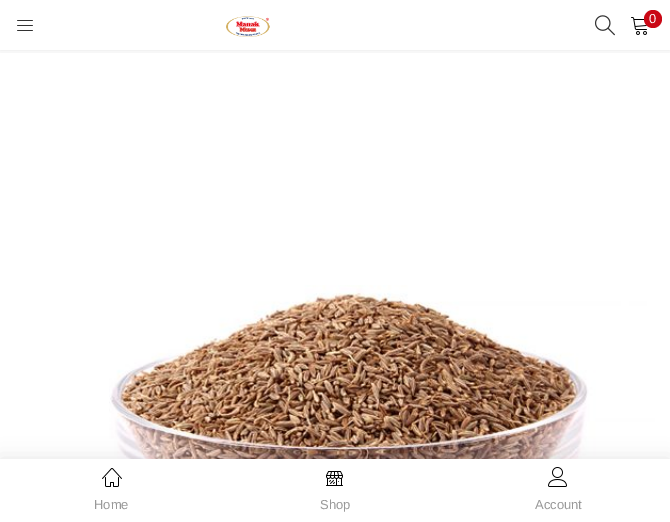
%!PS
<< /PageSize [670 522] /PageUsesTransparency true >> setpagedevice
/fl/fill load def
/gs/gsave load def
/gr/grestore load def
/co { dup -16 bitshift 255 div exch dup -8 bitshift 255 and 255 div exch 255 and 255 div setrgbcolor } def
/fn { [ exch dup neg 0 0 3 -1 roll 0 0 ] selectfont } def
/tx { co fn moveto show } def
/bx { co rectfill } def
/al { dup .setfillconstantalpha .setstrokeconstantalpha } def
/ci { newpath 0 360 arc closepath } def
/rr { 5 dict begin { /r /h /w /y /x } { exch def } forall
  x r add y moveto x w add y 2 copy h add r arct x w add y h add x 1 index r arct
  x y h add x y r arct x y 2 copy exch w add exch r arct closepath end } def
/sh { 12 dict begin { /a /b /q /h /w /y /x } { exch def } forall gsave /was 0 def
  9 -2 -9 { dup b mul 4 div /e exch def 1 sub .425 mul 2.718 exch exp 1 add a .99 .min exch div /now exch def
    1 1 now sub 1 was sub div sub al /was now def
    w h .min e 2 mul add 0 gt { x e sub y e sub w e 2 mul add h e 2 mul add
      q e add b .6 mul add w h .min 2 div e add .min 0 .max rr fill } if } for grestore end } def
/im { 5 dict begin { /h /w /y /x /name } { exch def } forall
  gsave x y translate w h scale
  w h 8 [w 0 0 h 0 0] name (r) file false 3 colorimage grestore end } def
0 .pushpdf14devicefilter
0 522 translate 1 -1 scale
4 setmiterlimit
0 0 670 522 16#FFFFFF bx
gs
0 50 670 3 rectclip
16#000000 co
0 0 670 50 0 4 .1 sh
gr
(media/1.raw) 17 20 16 11 im
(media/2.raw) 226 16 44 21 im
(media/3.raw) 595 15 20 21 im
(media/4.raw) 631 17 16 18 im
16#CA0815 co
653 19 9 ci fl
(media/5.raw) 109 285 546 174 im
16#000000 co
0 459 670 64 0 10 .1 sh
0 459 670 63 16#FFFFFF bx
(media/6.raw) 102 468 20 19 im
(media/7.raw) 326 471 17 15 im
(media/8.raw) 548 467 19 20 im
(0) 649 23 /LiberationSans-Regular 13 16#FFFFFF tx
(Home) 94 509 /LiberationSans-Regular 13 16#999999 tx
(Shop) 320 509 /LiberationSans-Regular 13 16#999999 tx
(Account) 535 509 /LiberationSans-Regular 13 16#999999 tx
.poppdf14devicefilter showpage
